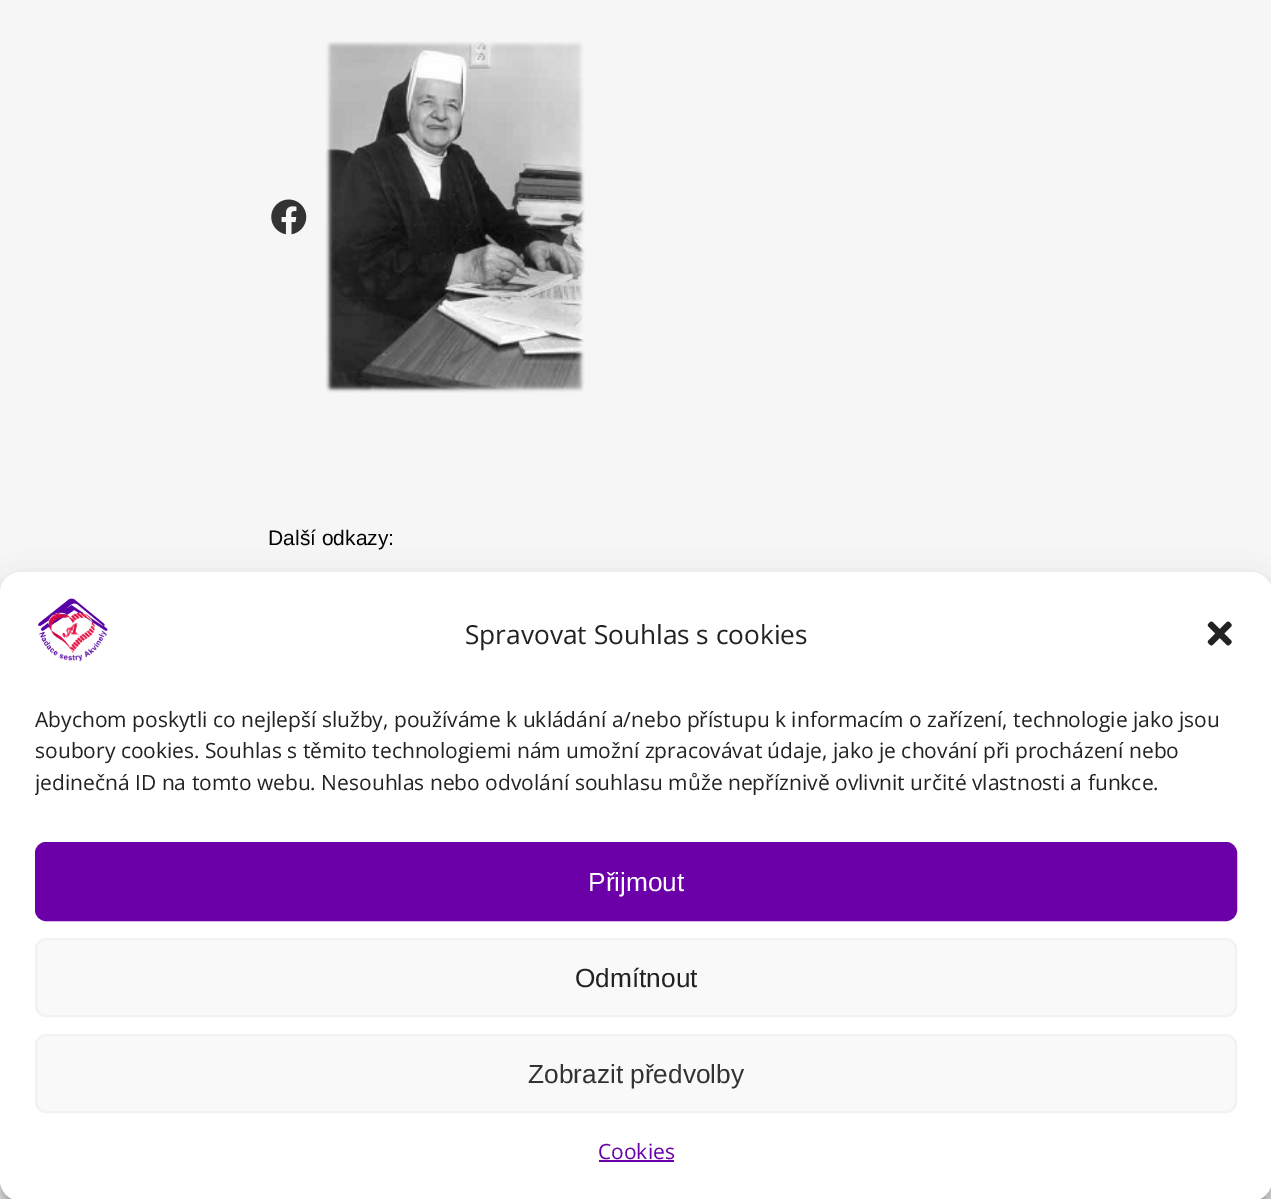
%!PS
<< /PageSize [1271 1199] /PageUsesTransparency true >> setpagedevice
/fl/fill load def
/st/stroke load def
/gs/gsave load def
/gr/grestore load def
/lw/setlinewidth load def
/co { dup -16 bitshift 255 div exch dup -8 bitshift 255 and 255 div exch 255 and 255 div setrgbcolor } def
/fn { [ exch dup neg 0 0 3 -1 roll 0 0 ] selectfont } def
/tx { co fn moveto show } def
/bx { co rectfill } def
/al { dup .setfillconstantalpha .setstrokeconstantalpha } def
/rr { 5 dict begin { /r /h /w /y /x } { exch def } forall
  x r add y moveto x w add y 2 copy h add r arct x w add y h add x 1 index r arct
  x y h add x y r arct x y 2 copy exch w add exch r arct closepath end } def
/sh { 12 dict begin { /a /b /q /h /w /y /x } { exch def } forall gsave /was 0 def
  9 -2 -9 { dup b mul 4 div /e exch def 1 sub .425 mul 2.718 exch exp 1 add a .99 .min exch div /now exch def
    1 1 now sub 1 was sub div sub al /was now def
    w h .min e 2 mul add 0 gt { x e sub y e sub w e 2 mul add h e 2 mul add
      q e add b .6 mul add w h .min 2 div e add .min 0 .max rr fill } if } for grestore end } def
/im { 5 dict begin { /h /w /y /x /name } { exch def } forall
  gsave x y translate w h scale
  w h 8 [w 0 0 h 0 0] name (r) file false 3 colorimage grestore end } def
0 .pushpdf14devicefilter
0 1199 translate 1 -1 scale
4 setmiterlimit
0 0 1271 1199 16#F6F6F6 bx
(media/1.raw) 271 199 36 36 im
(media/2.raw) 325 41 260 352 im
16#000000 co
0 583 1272 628 21 5 .23 sh
0 590 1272 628 21 17.5 .19 sh
16#FFFFFF co
0 572 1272 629 21 rr fl
(media/3.raw) 38 598 70 64 im
(media/4.raw) 1207 621 25 25 im
16#6B00A8 co
36 843 1200 77 10 rr gs fl gr
2 lw
st
16#F9F9F9 co
36 939 1200 77 10 rr gs fl gr
16#F2F2F2 co
st
16#F9F9F9 co
36 1035 1200 77 10 rr gs fl gr
16#F2F2F2 co
st
599 1160 75 2 16#6B00A8 bx
(Další odkazy:) 268 545 /LiberationSans-Regular 21 16#030303 tx
(Spravovat Souhlas s cookies) 465 644 /OpenSans-Regular 26.25 16#222222 tx
(Abychom poskytli co nejlepší služby, používáme k ukládání a/nebo přístupu k informacím o zařízení, technologie jako jsou) 35 727 /OpenSans-Regular 21 16#222222 tx
(soubory cookies. Souhlas s těmito technologiemi nám umožní zpracovávat údaje, jako je chování při procházení nebo) 35 758 /OpenSans-Regular 21 16#222222 tx
gs
35 704 1202 103 rectclip
(jedinečná ID na tomto webu. Nesouhlas nebo odvolání souhlasu může nepříznivě ovlivnit určité vlastnosti a funkce.) 35 790 /OpenSans-Regular 21 16#222222 tx
gr
(Přijmout) 588 891 /LiberationSans-Regular 26.25 16#FFFFFF tx
(Odmítnout) 575 987 /LiberationSans-Regular 26.25 16#222222 tx
(Zobrazit předvolby) 528 1083 /LiberationSans-Regular 26.25 16#333333 tx
(Cookies) 598 1159 /OpenSans-Regular 21 16#6B00A8 tx
.poppdf14devicefilter showpage
